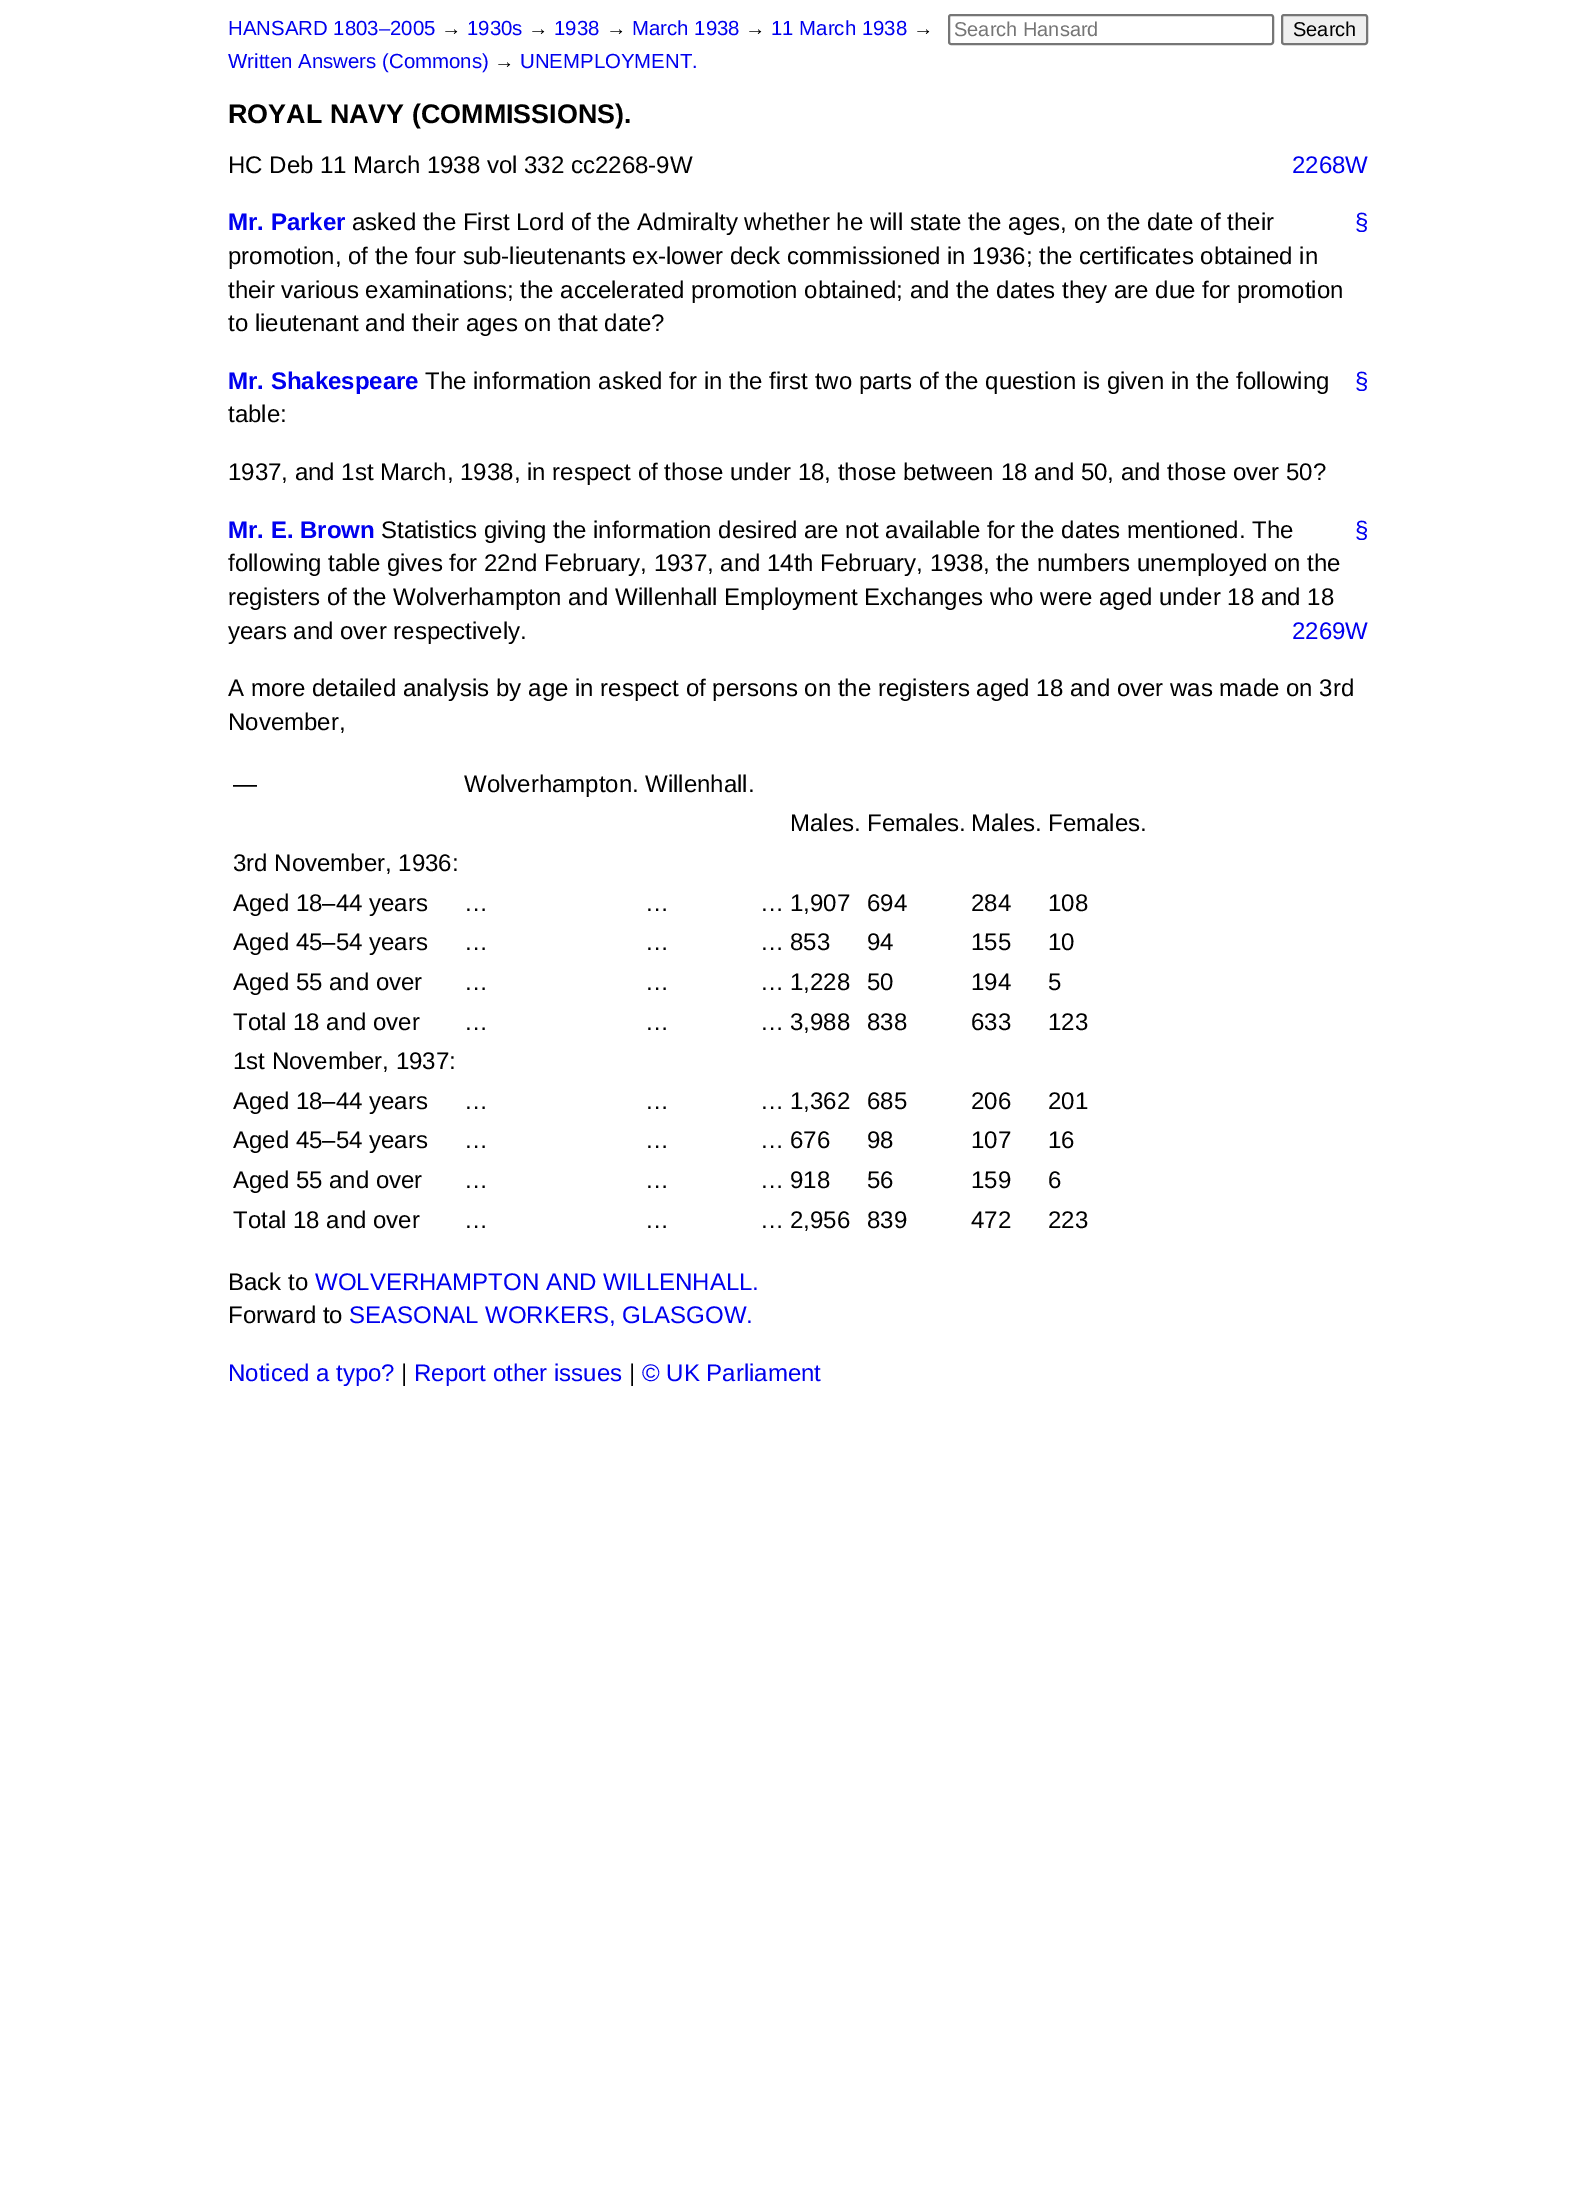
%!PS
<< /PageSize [1596 2202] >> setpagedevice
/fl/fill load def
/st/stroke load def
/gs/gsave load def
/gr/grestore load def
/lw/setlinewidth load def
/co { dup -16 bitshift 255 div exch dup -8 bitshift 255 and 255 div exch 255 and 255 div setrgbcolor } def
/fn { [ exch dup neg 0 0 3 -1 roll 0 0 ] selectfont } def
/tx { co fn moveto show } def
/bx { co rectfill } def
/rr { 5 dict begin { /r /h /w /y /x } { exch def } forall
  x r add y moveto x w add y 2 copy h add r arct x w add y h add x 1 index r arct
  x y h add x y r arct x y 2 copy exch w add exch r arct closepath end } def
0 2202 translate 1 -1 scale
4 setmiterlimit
0 0 1596 2202 16#FFFFFF bx
16#767676 co
2 lw
949 15 324 29 2 rr st
16#EFEFEF co
1282 15 85 29 2 rr gs fl gr
16#767676 co
st
(HANSARD 1803–2005) 228 35 /LiberationSans-Regular 20.4 16#0000EE tx
(→) 441 35 /LiberationSans-Regular 20.4 16#000000 tx
(1930s) 467 35 /LiberationSans-Regular 20.4 16#0000EE tx
(→) 528 35 /LiberationSans-Regular 20.4 16#000000 tx
(1938) 554 35 /LiberationSans-Regular 20.4 16#0000EE tx
(→) 606 35 /LiberationSans-Regular 20.4 16#000000 tx
(March 1938) 632 35 /LiberationSans-Regular 20.4 16#0000EE tx
(→) 745 35 /LiberationSans-Regular 20.4 16#000000 tx
(11 March 1938) 771 35 /LiberationSans-Regular 20.4 16#0000EE tx
(→) 913 35 /LiberationSans-Regular 20.4 16#000000 tx
(Written Answers \(Commons\)) 228 68 /LiberationSans-Regular 20.4 16#0000EE tx
(→) 494 68 /LiberationSans-Regular 20.4 16#000000 tx
(UNEMPLOYMENT.) 520 68 /LiberationSans-Regular 20.4 16#0000EE tx
(Search Hansard) 954 36 /LiberationSans-Regular 20 16#757575 tx
(Search) 1293 36 /LiberationSans-Regular 20 16#000000 tx
(ROYAL NAVY \(COMMISSIONS\).) 228 123 /LiberationSans-Bold 26.9 16#000000 tx
(HC Deb 11 March 1938 vol 332 cc2268-9W) 228 173 /LiberationSans-Regular 24 16#000000 tx
(2268W) 1292 173 /LiberationSans-Regular 24 16#0000EE tx
(Mr. Parker) 228 230 /LiberationSans-Bold 24 16#0000EE tx
(asked the First Lord of the Admiralty whether he will state the ages, on the date of their) 352 230 /LiberationSans-Regular 24 16#000000 tx
(§) 1355 230 /LiberationSans-Regular 24 16#0000EE tx
(promotion, of the four sub-lieutenants ex-lower deck commissioned in 1936; the certificates obtained in) 228 264 /LiberationSans-Regular 24 16#000000 tx
(their various examinations; the accelerated promotion obtained; and the dates they are due for promotion) 228 298 /LiberationSans-Regular 24 16#000000 tx
(to lieutenant and their ages on that date?) 228 331 /LiberationSans-Regular 24 16#000000 tx
(Mr. Shakespeare) 228 389 /LiberationSans-Bold 24 16#0000EE tx
(The information asked for in the first two parts of the question is given in the following) 425 389 /LiberationSans-Regular 24 16#000000 tx
(§) 1355 389 /LiberationSans-Regular 24 16#0000EE tx
(table:) 228 422 /LiberationSans-Regular 24 16#000000 tx
(1937, and 1st March, 1938, in respect of those under 18, those between 18 and 50, and those over 50?) 228 480 /LiberationSans-Regular 24 16#000000 tx
(Mr. E. Brown) 228 538 /LiberationSans-Bold 24 16#0000EE tx
(Statistics giving the information desired are not available for the dates mentioned. The) 381 538 /LiberationSans-Regular 24 16#000000 tx
(§) 1355 538 /LiberationSans-Regular 24 16#0000EE tx
(following table gives for 22nd February, 1937, and 14th February, 1938, the numbers unemployed on the) 228 571 /LiberationSans-Regular 24 16#000000 tx
(registers of the Wolverhampton and Willenhall Employment Exchanges who were aged under 18 and 18) 228 605 /LiberationSans-Regular 24 16#000000 tx
(years and over respectively.) 228 639 /LiberationSans-Regular 24 16#000000 tx
(2269W) 1292 639 /LiberationSans-Regular 24 16#0000EE tx
(A more detailed analysis by age in respect of persons on the registers aged 18 and over was made on 3rd) 228 696 /LiberationSans-Regular 24 16#000000 tx
(November,) 228 730 /LiberationSans-Regular 24 16#000000 tx
(—) 233 792 /LiberationSans-Regular 24 16#000000 tx
(Wolverhampton.) 464 792 /LiberationSans-Regular 24 16#000000 tx
(Willenhall.) 645 792 /LiberationSans-Regular 24 16#000000 tx
(Males.) 790 831 /LiberationSans-Regular 24 16#000000 tx
(Females.) 867 831 /LiberationSans-Regular 24 16#000000 tx
(Males.) 971 831 /LiberationSans-Regular 24 16#000000 tx
(Females.) 1048 831 /LiberationSans-Regular 24 16#000000 tx
(3rd November, 1936:) 233 871 /LiberationSans-Regular 24 16#000000 tx
(Aged 18–44 years) 233 911 /LiberationSans-Regular 24 16#000000 tx
(…) 464 911 /LiberationSans-Regular 24 16#000000 tx
(…) 645 911 /LiberationSans-Regular 24 16#000000 tx
(…) 760 911 /LiberationSans-Regular 24 16#000000 tx
(1,907) 790 911 /LiberationSans-Regular 24 16#000000 tx
(694) 867 911 /LiberationSans-Regular 24 16#000000 tx
(284) 971 911 /LiberationSans-Regular 24 16#000000 tx
(108) 1048 911 /LiberationSans-Regular 24 16#000000 tx
(Aged 45–54 years) 233 950 /LiberationSans-Regular 24 16#000000 tx
(…) 464 950 /LiberationSans-Regular 24 16#000000 tx
(…) 645 950 /LiberationSans-Regular 24 16#000000 tx
(…) 760 950 /LiberationSans-Regular 24 16#000000 tx
(853) 790 950 /LiberationSans-Regular 24 16#000000 tx
(94) 867 950 /LiberationSans-Regular 24 16#000000 tx
(155) 971 950 /LiberationSans-Regular 24 16#000000 tx
(10) 1048 950 /LiberationSans-Regular 24 16#000000 tx
(Aged 55 and over) 233 990 /LiberationSans-Regular 24 16#000000 tx
(…) 464 990 /LiberationSans-Regular 24 16#000000 tx
(…) 645 990 /LiberationSans-Regular 24 16#000000 tx
(…) 760 990 /LiberationSans-Regular 24 16#000000 tx
(1,228) 790 990 /LiberationSans-Regular 24 16#000000 tx
(50) 867 990 /LiberationSans-Regular 24 16#000000 tx
(194) 971 990 /LiberationSans-Regular 24 16#000000 tx
(5) 1048 990 /LiberationSans-Regular 24 16#000000 tx
(Total 18 and over) 233 1030 /LiberationSans-Regular 24 16#000000 tx
(…) 464 1030 /LiberationSans-Regular 24 16#000000 tx
(…) 645 1030 /LiberationSans-Regular 24 16#000000 tx
(…) 760 1030 /LiberationSans-Regular 24 16#000000 tx
(3,988) 790 1030 /LiberationSans-Regular 24 16#000000 tx
(838) 867 1030 /LiberationSans-Regular 24 16#000000 tx
(633) 971 1030 /LiberationSans-Regular 24 16#000000 tx
(123) 1048 1030 /LiberationSans-Regular 24 16#000000 tx
(1st November, 1937:) 233 1069 /LiberationSans-Regular 24 16#000000 tx
(Aged 18–44 years) 233 1109 /LiberationSans-Regular 24 16#000000 tx
(…) 464 1109 /LiberationSans-Regular 24 16#000000 tx
(…) 645 1109 /LiberationSans-Regular 24 16#000000 tx
(…) 760 1109 /LiberationSans-Regular 24 16#000000 tx
(1,362) 790 1109 /LiberationSans-Regular 24 16#000000 tx
(685) 867 1109 /LiberationSans-Regular 24 16#000000 tx
(206) 971 1109 /LiberationSans-Regular 24 16#000000 tx
(201) 1048 1109 /LiberationSans-Regular 24 16#000000 tx
(Aged 45–54 years) 233 1148 /LiberationSans-Regular 24 16#000000 tx
(…) 464 1148 /LiberationSans-Regular 24 16#000000 tx
(…) 645 1148 /LiberationSans-Regular 24 16#000000 tx
(…) 760 1148 /LiberationSans-Regular 24 16#000000 tx
(676) 790 1148 /LiberationSans-Regular 24 16#000000 tx
(98) 867 1148 /LiberationSans-Regular 24 16#000000 tx
(107) 971 1148 /LiberationSans-Regular 24 16#000000 tx
(16) 1048 1148 /LiberationSans-Regular 24 16#000000 tx
(Aged 55 and over) 233 1188 /LiberationSans-Regular 24 16#000000 tx
(…) 464 1188 /LiberationSans-Regular 24 16#000000 tx
(…) 645 1188 /LiberationSans-Regular 24 16#000000 tx
(…) 760 1188 /LiberationSans-Regular 24 16#000000 tx
(918) 790 1188 /LiberationSans-Regular 24 16#000000 tx
(56) 867 1188 /LiberationSans-Regular 24 16#000000 tx
(159) 971 1188 /LiberationSans-Regular 24 16#000000 tx
(6) 1048 1188 /LiberationSans-Regular 24 16#000000 tx
(Total 18 and over) 233 1228 /LiberationSans-Regular 24 16#000000 tx
(…) 464 1228 /LiberationSans-Regular 24 16#000000 tx
(…) 645 1228 /LiberationSans-Regular 24 16#000000 tx
(…) 760 1228 /LiberationSans-Regular 24 16#000000 tx
(2,956) 790 1228 /LiberationSans-Regular 24 16#000000 tx
(839) 867 1228 /LiberationSans-Regular 24 16#000000 tx
(472) 971 1228 /LiberationSans-Regular 24 16#000000 tx
(223) 1048 1228 /LiberationSans-Regular 24 16#000000 tx
(Back to) 228 1290 /LiberationSans-Regular 24 16#000000 tx
(WOLVERHAMPTON AND WILLENHALL.) 315 1290 /LiberationSans-Regular 24 16#0000EE tx
(Forward to) 228 1323 /LiberationSans-Regular 24 16#000000 tx
(SEASONAL WORKERS, GLASGOW.) 349 1323 /LiberationSans-Regular 24 16#0000EE tx
(Noticed a typo?) 228 1381 /LiberationSans-Regular 24 16#0000EE tx
(|) 401 1381 /LiberationSans-Regular 24 16#000000 tx
(Report other issues) 414 1381 /LiberationSans-Regular 24 16#0000EE tx
(|) 629 1381 /LiberationSans-Regular 24 16#000000 tx
(© UK Parliament) 642 1381 /LiberationSans-Regular 24 16#0000EE tx
showpage
